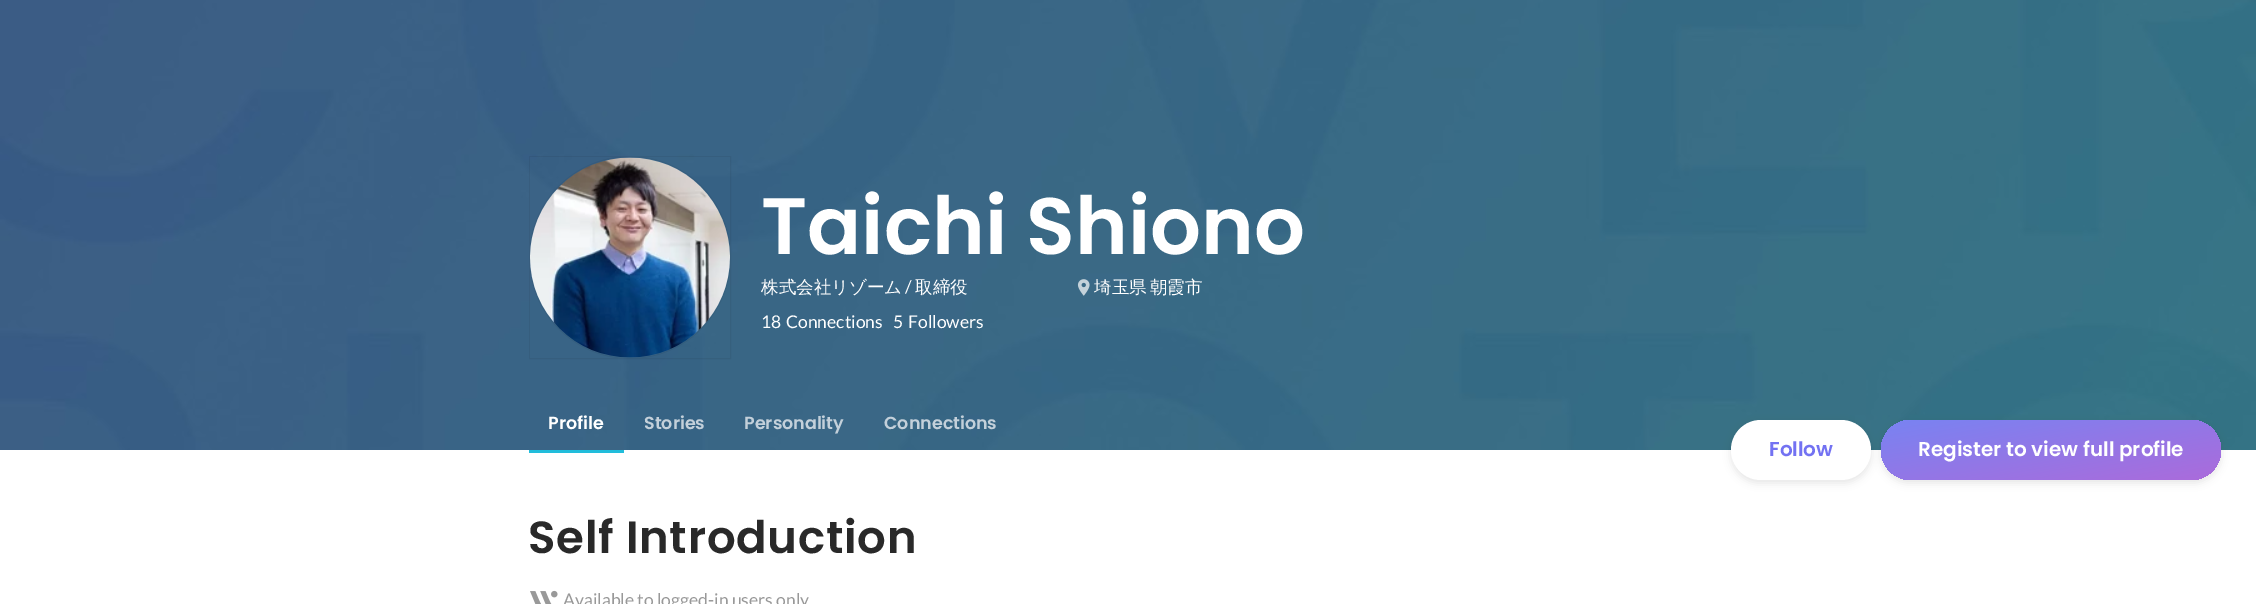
%!PS
<< /PageSize [2256 604] /PageUsesTransparency true >> setpagedevice
/mt/moveto load def
/fl/fill load def
/gs/gsave load def
/gr/grestore load def
/co { dup -16 bitshift 255 div exch dup -8 bitshift 255 and 255 div exch 255 and 255 div setrgbcolor } def
/fn { [ exch dup neg 0 0 3 -1 roll 0 0 ] selectfont } def
/tx { co fn moveto show } def
/bx { co rectfill } def
/al { dup .setfillconstantalpha .setstrokeconstantalpha } def
/rr { 5 dict begin { /r /h /w /y /x } { exch def } forall
  x r add y moveto x w add y 2 copy h add r arct x w add y h add x 1 index r arct
  x y h add x y r arct x y 2 copy exch w add exch r arct closepath end } def
/sh { 12 dict begin { /a /b /q /h /w /y /x } { exch def } forall gsave /was 0 def
  9 -2 -9 { dup b mul 4 div /e exch def 1 sub .425 mul 2.718 exch exp 1 add a .99 .min exch div /now exch def
    1 1 now sub 1 was sub div sub al /was now def
    w h .min e 2 mul add 0 gt { x e sub y e sub w e 2 mul add h e 2 mul add
      q e add b .6 mul add w h .min 2 div e add .min 0 .max rr fill } if } for grestore end } def
/im { 5 dict begin { /h /w /y /x /name } { exch def } forall
  gsave x y translate w h scale
  w h 8 [w 0 0 h 0 0] name (r) file false 3 colorimage grestore end } def
0 .pushpdf14devicefilter
0 604 translate 1 -1 scale
4 setmiterlimit
0 0 2256 604 16#FFFFFF bx
(media/1.raw) 0 0 2256 450 im
0.06 al
16#000000 co
529.5 156.5 201 202 rectstroke
1 al
(media/2.raw) 530 157 200 201 im
(media/3.raw) 1077 279 13 17 im
529 450 95 3 16#21BDDB bx
16#000000 co
1731 423 140 60 30 4 .1 sh
16#FFFFFF co
1731 420 140 60 30 rr fl
16#000000 co
1881 423 340 60 30 4 .1 sh
gs 1881 420 340 60 30 rr clip newpath
<< /ShadingType 2 /ColorSpace /DeviceRGB /Coords [2041 392 2062 508] /Extend [true true] /Function << /FunctionType 2 /Domain [0 1] /C0 [.475 .514 .949] /C1 [.671 .42 .859] /N 1 >> >> shfill gr
(media/4.raw) 530 590 28 14 im
(Taichi Shiono) 761 254 /Poppins-SemiBold 80 16#FFFFFF tx
(株式会社リゾーム) 761 293 /WenQuanYiZenHei-Medium 17.5 16#FFFFFF tx
(/) 905 293 /Lato-Regular 17.5 16#FFFFFF tx
(取締役) 915 293 /WenQuanYiZenHei-Medium 17.5 16#FFFFFF tx
1094 293 mt -2 0 32 (埼玉県 朝霞市) widthshow
(18) 761 328 /Lato-Regular 17.5 16#FFFFFF tx
(Connections) 786 328 /Lato-Regular 17.5 16#FFFFFF tx
(5) 893 328 /Lato-Regular 17.5 16#FFFFFF tx
(Followers) 908 328 /Lato-Regular 17.5 16#FFFFFF tx
(Profile) 548 429 /Poppins-SemiBold 17.5 16#FFFFFF tx
(Stories) 644 429 /Poppins-SemiBold 17.5 16#C3D0DA tx
(Personality) 744 429 /Poppins-SemiBold 17.5 16#C3D0DA tx
(Connections) 884 429 /Poppins-SemiBold 17.5 16#C3D0DA tx
(Follow) 1769 456 /Poppins-SemiBold 20 16#7372F2 tx
(Register to view full profile) 1918 456 /Poppins-SemiBold 20 16#FFFFFF tx
/Poppins-SemiBold 45 fn
16#292929 co
528 553 mt .75 0 (Self Introduction) ashow
(Available to logged-in users only) 563 606 /Lato-Regular 17.5 16#999999 tx
.poppdf14devicefilter showpage
